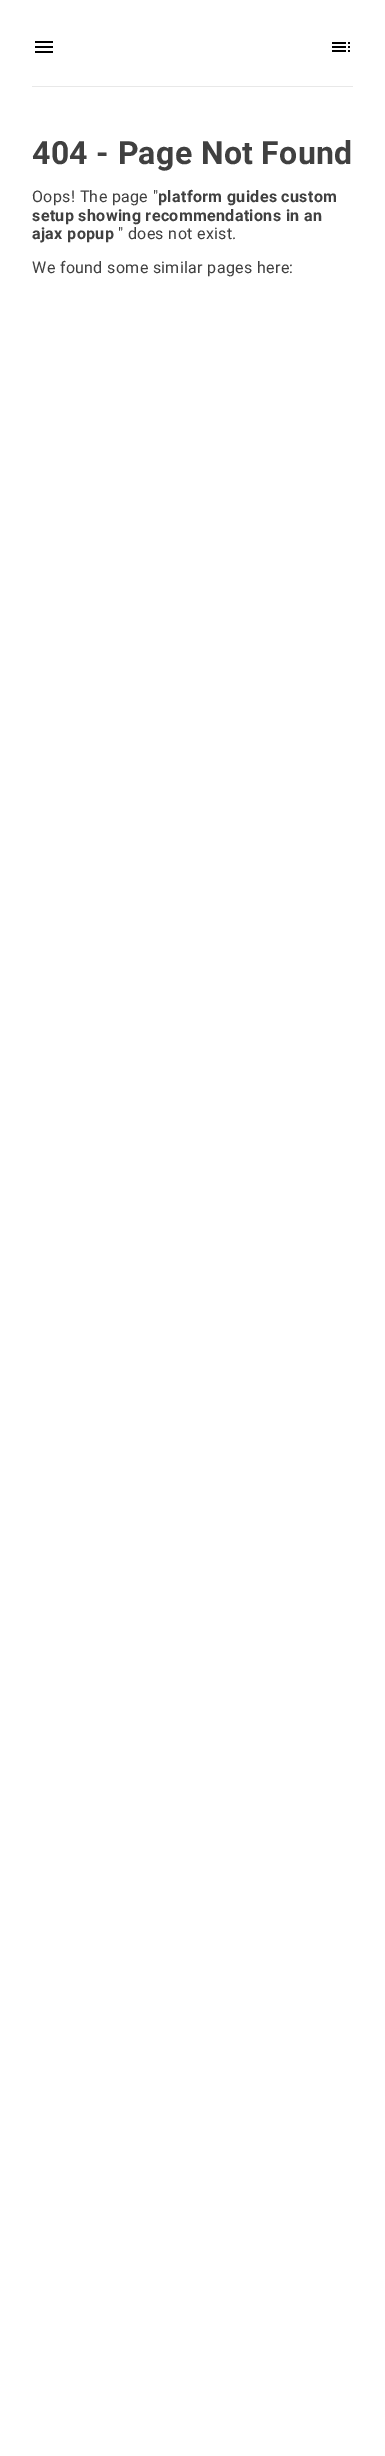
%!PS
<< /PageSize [385 2456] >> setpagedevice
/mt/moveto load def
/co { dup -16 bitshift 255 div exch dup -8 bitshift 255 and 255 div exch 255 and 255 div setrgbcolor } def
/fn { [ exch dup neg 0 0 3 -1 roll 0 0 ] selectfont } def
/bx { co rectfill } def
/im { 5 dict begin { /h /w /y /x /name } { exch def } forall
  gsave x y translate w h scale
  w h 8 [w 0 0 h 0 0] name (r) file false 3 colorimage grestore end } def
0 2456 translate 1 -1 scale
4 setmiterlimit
0 0 385 2456 16#FFFFFF bx
32 86 321 1 16#E8E8E8 bx
(media/1.raw) 35 41 18 12 im
(media/2.raw) 332 42 18 10 im
/Roboto-Bold 32 fn
16#404040 co
32 164 mt .35 0 (404 - Page Not Found) ashow
/Roboto-Regular 16 fn
32 202 mt .35 0 (Oops! The page ") ashow
/Roboto-Bold 16 fn
158 202 mt .35 0 (platform guides custom) ashow
32 221 mt .35 0 (setup showing recommendations in an) ashow
32 239 mt .35 0 (ajax popup) ashow
/Roboto-Regular 16 fn
118 239 mt .35 0 (" does not exist.) ashow
32 273 mt .35 0 (We found some similar pages here:) ashow
showpage
